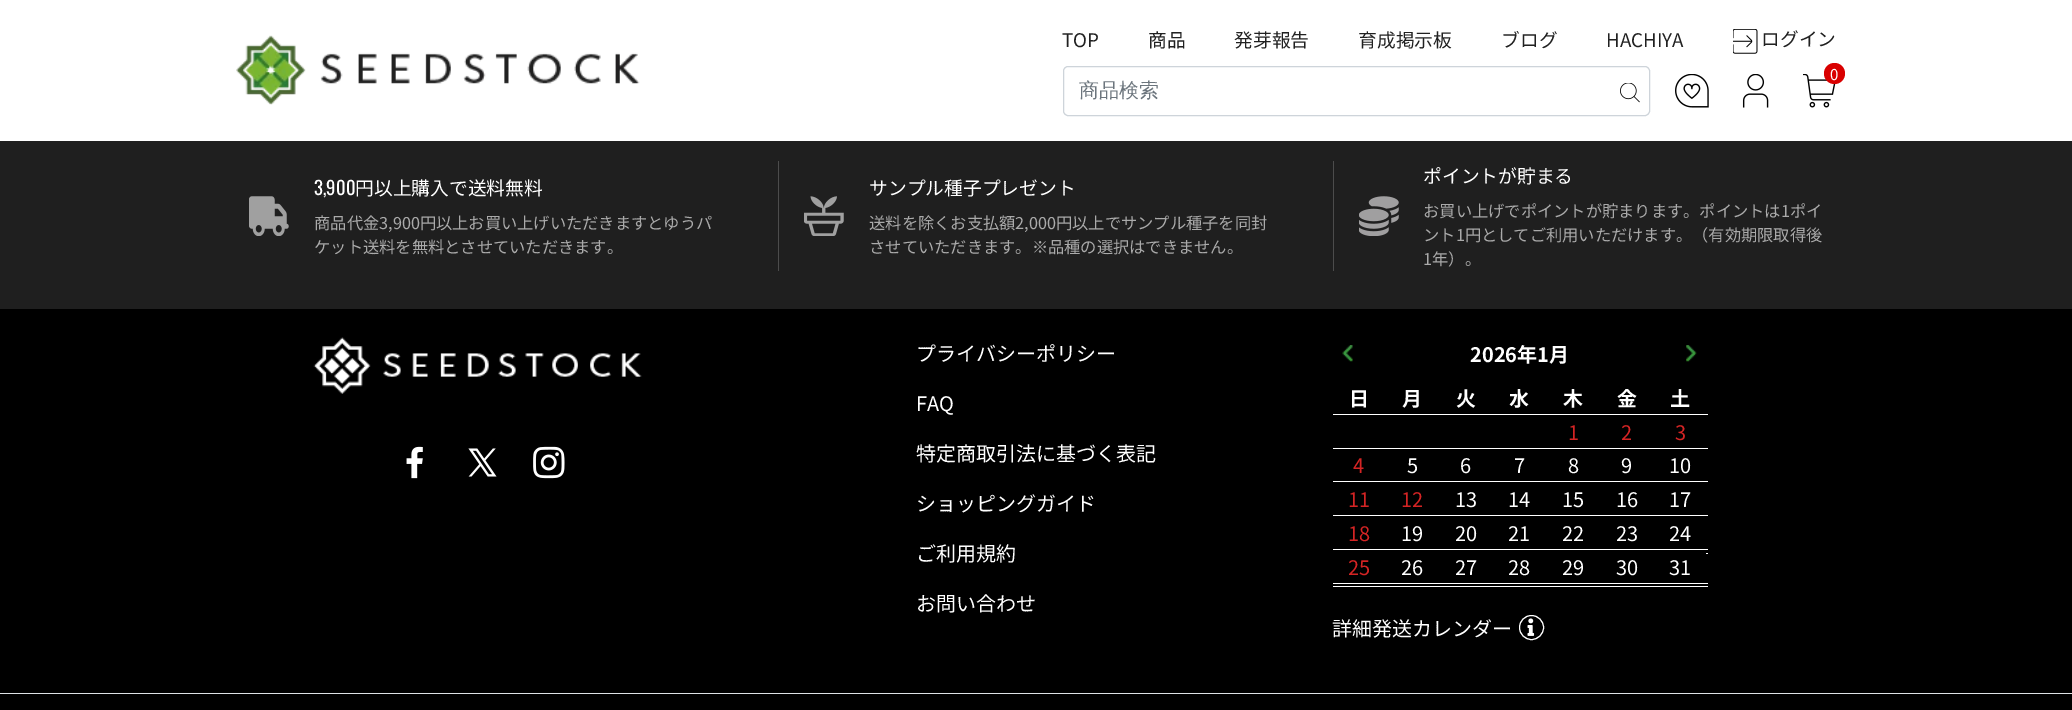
%!PS
<< /PageSize [2072 710] >> setpagedevice
/fl/fill load def
/st/stroke load def
/co { dup -16 bitshift 255 div exch dup -8 bitshift 255 and 255 div exch 255 and 255 div setrgbcolor } def
/fn { [ exch dup neg 0 0 3 -1 roll 0 0 ] selectfont } def
/tx { co fn moveto show } def
/bx { co rectfill } def
/ci { newpath 0 360 arc closepath } def
/rr { 5 dict begin { /r /h /w /y /x } { exch def } forall
  x r add y moveto x w add y 2 copy h add r arct x w add y h add x 1 index r arct
  x y h add x y r arct x y 2 copy exch w add exch r arct closepath end } def
/im { 5 dict begin { /h /w /y /x /name } { exch def } forall
  gsave x y translate w h scale
  w h 8 [w 0 0 h 0 0] name (r) file false 3 colorimage grestore end } def
0 710 translate 1 -1 scale
4 setmiterlimit
0 0 2072 710 16#000000 bx
0 0 2072 141 16#FFFFFF bx
(media/1.raw) 236 35 404 70 im
(media/2.raw) 1733 29 25 25 im
(media/3.raw) 1675 74 34 34 im
(media/4.raw) 1742 74 27 34 im
(media/5.raw) 1803 74 33 34 im
16#D90000 co
1834.5 73.5 10.5 ci fl
16#CED4DA co
1063.5 66.5 586 49 4.5 rr st
(media/6.raw) 1620 83 20 20 im
0 141 2072 168 16#1F1F1F bx
(media/7.raw) 249 196 40 40 im
778 161 1 110 16#4C4C4C bx
(media/8.raw) 804 196 40 40 im
1333 161 1 110 16#4C4C4C bx
(media/9.raw) 1359 196 40 40 im
(media/10.raw) 313 337 329 57 im
(media/11.raw) 406 446 17 33 im
(media/12.raw) 468 448 29 29 im
(media/13.raw) 533 446 32 33 im
(media/14.raw) 1342 345 11 17 im
1333 414 375 1 16#FFFFFF bx
1333 448 375 1 16#FFFFFF bx
1333 481 375 1 16#FFFFFF bx
1333 515 375 1 16#FFFFFF bx
1333 549 375 1 16#FFFFFF bx
1333 583 375 1 16#FFFFFF bx
1333 586 375 1 16#FFFFFF bx
1706 553 2 1 16#FFFFFF bx
(media/15.raw) 1686 345 11 17 im
1531.5 627.5 12 ci st
(media/16.raw) 1527 618 8 18 im
0 693 2072 1 16#DEE2E6 bx
(TOP) 1062 47 /NotoSansJP-Regular 18.75 16#212121 tx
(商品) 1148 47 /NotoSansJP-Regular 18.75 16#212121 tx
(発芽報告) 1234 47 /NotoSansJP-Regular 18.75 16#212121 tx
(育成掲示板) 1358 47 /NotoSansJP-Regular 18.75 16#212121 tx
(ブログ) 1501 47 /NotoSansJP-Regular 18.75 16#212121 tx
(HACHIYA) 1606 47 /NotoSansJP-Regular 18.75 16#212121 tx
(ログイン) 1761 46 /NotoSansJP-Regular 18.75 16#212121 tx
(0) 1830 80 /NotoSansJP-Regular 15 16#FFFFFF tx
(商品検索) 1079 97 /WenQuanYiZenHei-Medium 20 16#6C757D tx
(3,900) 314 195 /Oswald-Regular 18.75 16#FFFFFF tx
(円以上購入で送料無料) 355 195 /NotoSansJP-Regular 18.75 16#FFFFFF tx
(商品代金3,900円以上お買い上げいただきますとゆうパ) 314 229 /NotoSansJP-Regular 16.25 16#AAAAAA tx
(ケット送料を無料とさせていただきます。) 314 253 /NotoSansJP-Regular 16.25 16#AAAAAA tx
(サンプル種子プレゼント) 869 195 /NotoSansJP-Regular 18.75 16#FFFFFF tx
(送料を除くお支払額2,000円以上でサンプル種子を同封) 869 229 /NotoSansJP-Regular 16.25 16#AAAAAA tx
(させていただきます。※品種の選択はできません。) 869 253 /NotoSansJP-Regular 16.25 16#AAAAAA tx
(ポイントが貯まる) 1423 183 /NotoSansJP-Regular 18.75 16#FFFFFF tx
(お買い上げでポイントが貯まります。ポイントは1ポイ) 1423 217 /NotoSansJP-Regular 16.25 16#AAAAAA tx
(ント1円としてご利用いただけます。（有効期限取得後) 1423 241 /NotoSansJP-Regular 16.25 16#AAAAAA tx
(1年）。) 1423 265 /NotoSansJP-Regular 16.25 16#AAAAAA tx
(プライバシーポリシー) 916 361 /NotoSansJP-Regular 20 16#FFFFFF tx
(FAQ) 916 411 /NotoSansJP-Regular 20 16#FFFFFF tx
(特定商取引法に基づく表記) 916 461 /NotoSansJP-Regular 20 16#FFFFFF tx
(ショッピングガイド) 916 511 /NotoSansJP-Regular 20 16#FFFFFF tx
(ご利用規約) 916 561 /NotoSansJP-Regular 20 16#FFFFFF tx
(お問い合わせ) 916 611 /NotoSansJP-Regular 20 16#FFFFFF tx
(2026年1月) 1470 362 /NotoSansJP-Bold 20 16#FFFFFF tx
(日) 1349 406 /NotoSansJP-Bold 20 16#FFFFFF tx
(月) 1402 406 /NotoSansJP-Bold 20 16#FFFFFF tx
(火) 1456 406 /NotoSansJP-Bold 20 16#FFFFFF tx
(水) 1509 406 /NotoSansJP-Bold 20 16#FFFFFF tx
(木) 1563 406 /NotoSansJP-Bold 20 16#FFFFFF tx
(金) 1617 406 /NotoSansJP-Bold 20 16#FFFFFF tx
(土) 1670 406 /NotoSansJP-Bold 20 16#FFFFFF tx
(1) 1568 440 /NotoSansJP-Regular 20 16#D42424 tx
(2) 1621 440 /NotoSansJP-Regular 20 16#D42424 tx
(3) 1675 440 /NotoSansJP-Regular 20 16#D42424 tx
(4) 1353 473 /NotoSansJP-Regular 20 16#D42424 tx
(5) 1407 473 /NotoSansJP-Regular 20 16#FFFFFF tx
(6) 1460 473 /NotoSansJP-Regular 20 16#FFFFFF tx
(7) 1514 473 /NotoSansJP-Regular 20 16#FFFFFF tx
(8) 1568 473 /NotoSansJP-Regular 20 16#FFFFFF tx
(9) 1621 473 /NotoSansJP-Regular 20 16#FFFFFF tx
(10) 1669 473 /NotoSansJP-Regular 20 16#FFFFFF tx
(11) 1348 507 /NotoSansJP-Regular 20 16#D42424 tx
(12) 1401 507 /NotoSansJP-Regular 20 16#D42424 tx
(13) 1455 507 /NotoSansJP-Regular 20 16#FFFFFF tx
(14) 1508 507 /NotoSansJP-Regular 20 16#FFFFFF tx
(15) 1562 507 /NotoSansJP-Regular 20 16#FFFFFF tx
(16) 1616 507 /NotoSansJP-Regular 20 16#FFFFFF tx
(17) 1669 507 /NotoSansJP-Regular 20 16#FFFFFF tx
(18) 1348 541 /NotoSansJP-Regular 20 16#D42424 tx
(19) 1401 541 /NotoSansJP-Regular 20 16#FFFFFF tx
(20) 1455 541 /NotoSansJP-Regular 20 16#FFFFFF tx
(21) 1508 541 /NotoSansJP-Regular 20 16#FFFFFF tx
(22) 1562 541 /NotoSansJP-Regular 20 16#FFFFFF tx
(23) 1616 541 /NotoSansJP-Regular 20 16#FFFFFF tx
(24) 1669 541 /NotoSansJP-Regular 20 16#FFFFFF tx
(25) 1348 575 /NotoSansJP-Regular 20 16#D42424 tx
(26) 1401 575 /NotoSansJP-Regular 20 16#FFFFFF tx
(27) 1455 575 /NotoSansJP-Regular 20 16#FFFFFF tx
(28) 1508 575 /NotoSansJP-Regular 20 16#FFFFFF tx
(29) 1562 575 /NotoSansJP-Regular 20 16#FFFFFF tx
(30) 1616 575 /NotoSansJP-Regular 20 16#FFFFFF tx
(31) 1669 575 /NotoSansJP-Regular 20 16#FFFFFF tx
(詳細発送カレンダー) 1332 636 /NotoSansJP-Regular 20 16#FFFFFF tx
showpage
